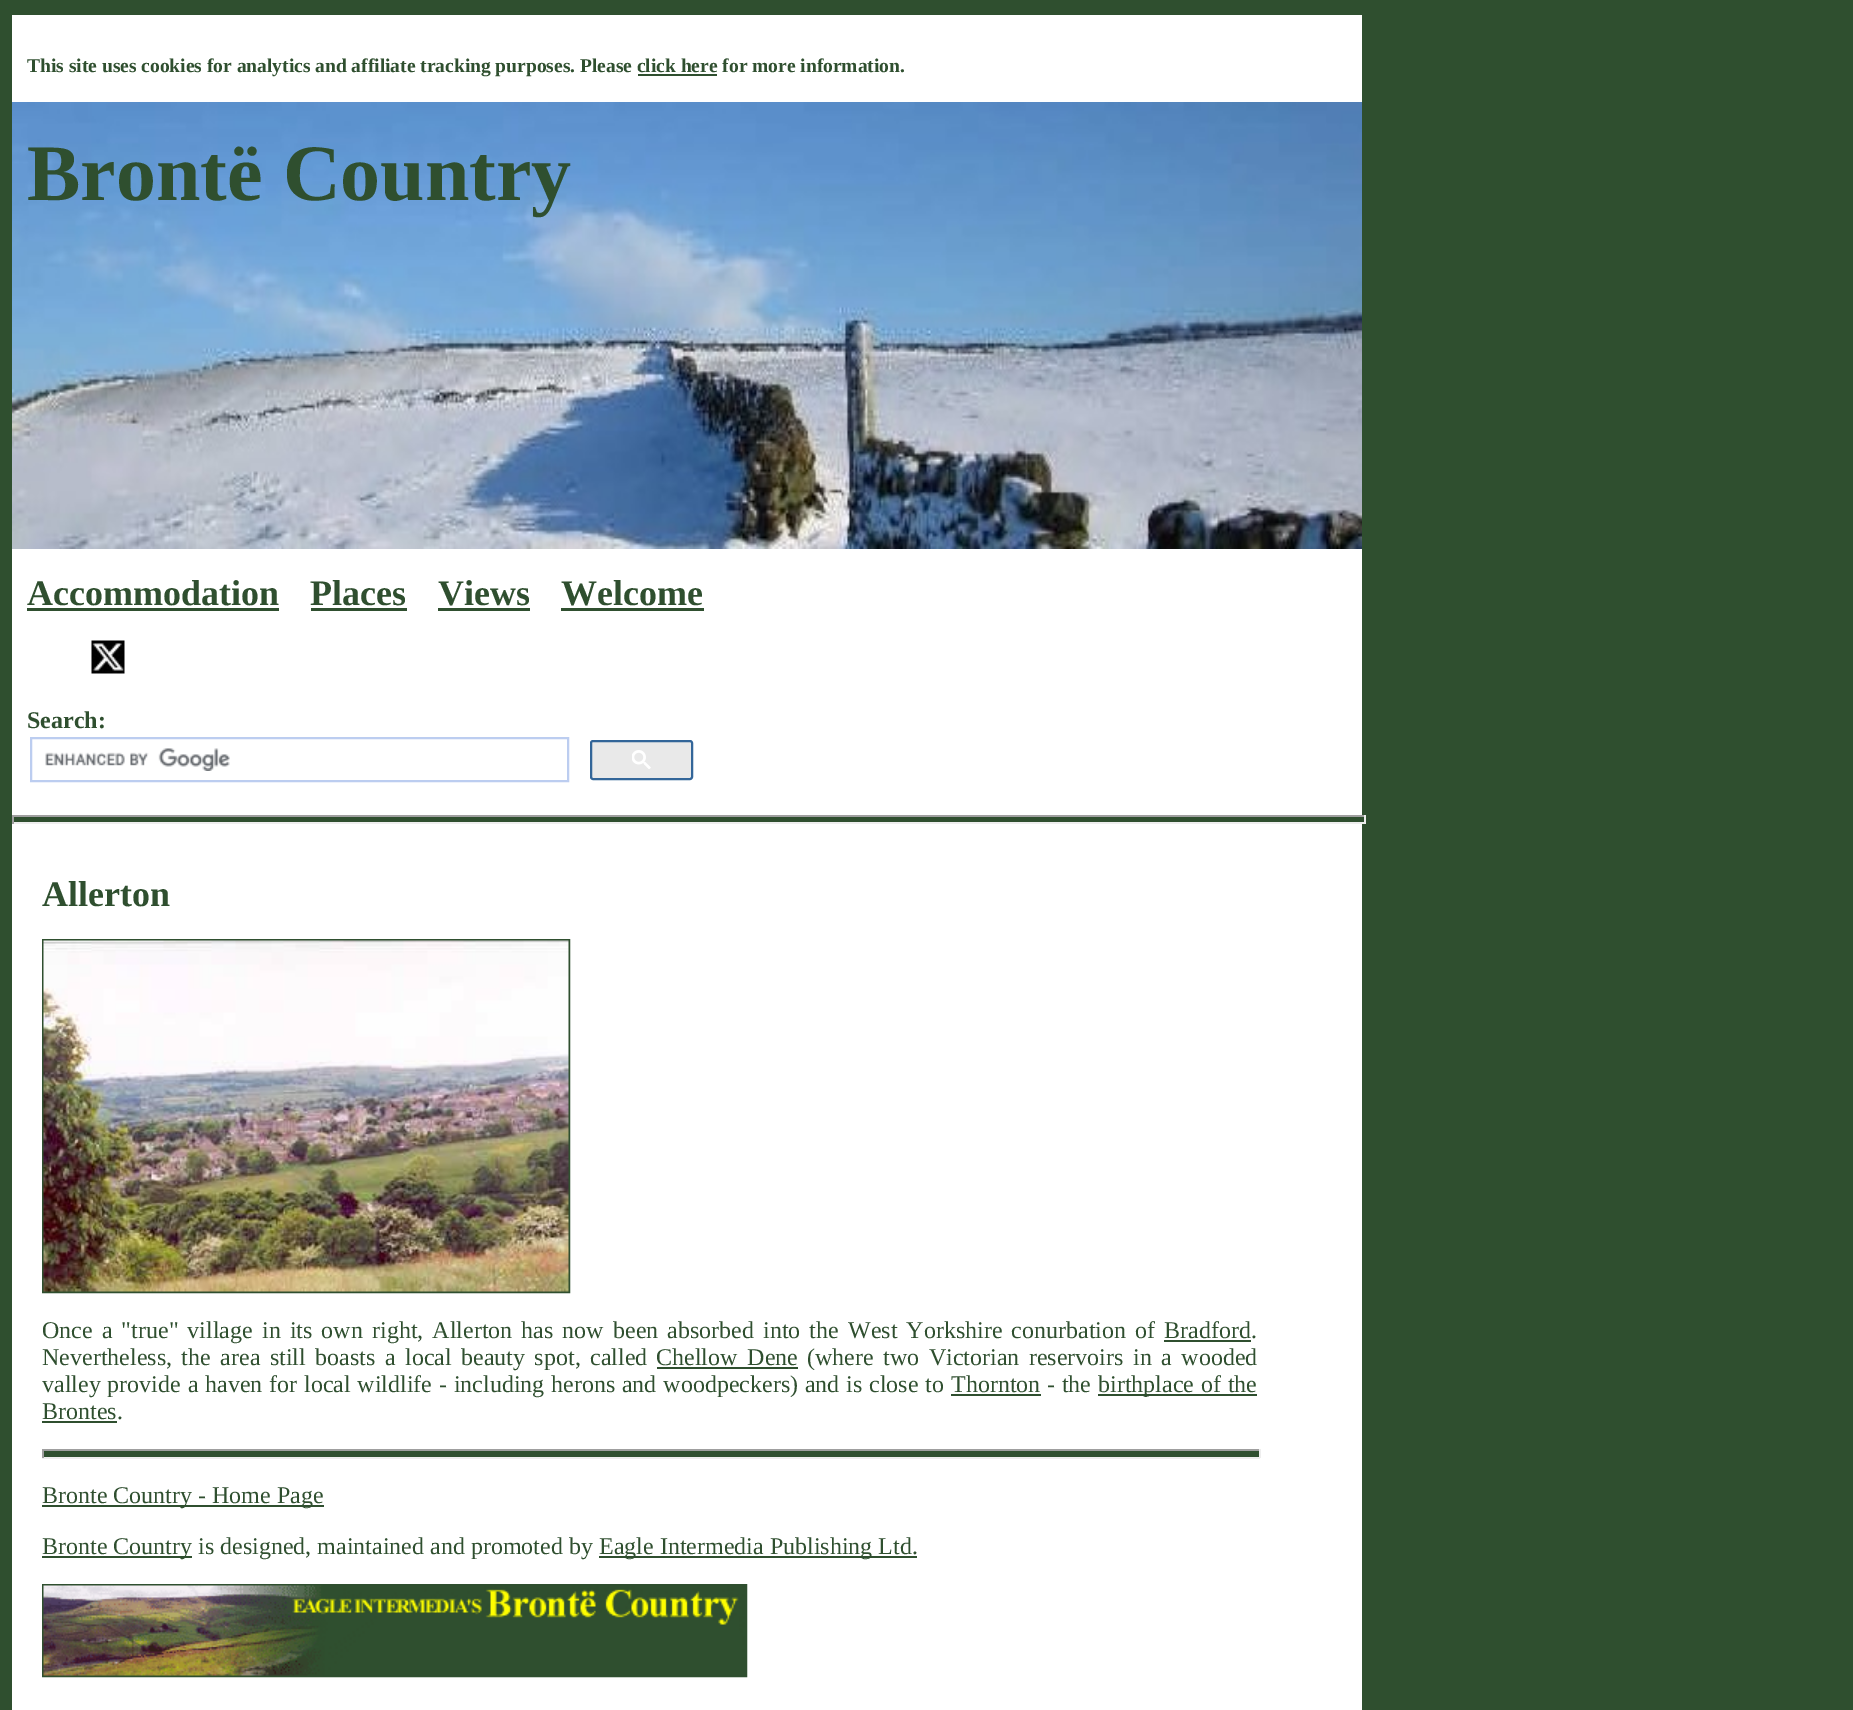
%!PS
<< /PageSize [1853 1710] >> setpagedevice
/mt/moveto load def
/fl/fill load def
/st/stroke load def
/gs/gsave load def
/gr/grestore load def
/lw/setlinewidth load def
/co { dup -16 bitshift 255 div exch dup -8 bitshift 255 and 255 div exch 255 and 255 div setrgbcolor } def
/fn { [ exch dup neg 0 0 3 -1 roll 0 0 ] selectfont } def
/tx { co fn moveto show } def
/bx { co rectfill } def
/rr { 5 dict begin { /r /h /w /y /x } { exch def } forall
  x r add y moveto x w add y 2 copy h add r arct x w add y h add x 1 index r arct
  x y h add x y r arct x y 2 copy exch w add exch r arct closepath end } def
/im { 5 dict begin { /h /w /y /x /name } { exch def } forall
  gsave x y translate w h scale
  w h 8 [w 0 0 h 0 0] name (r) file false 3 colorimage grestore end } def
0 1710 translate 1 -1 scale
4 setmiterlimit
0 0 1853 1710 16#2F4F2F bx
12 15 1350 1695 16#FFFFFF bx
638 74 79 2 16#2F4F2F bx
(media/1.raw) 12 102 1350 447 im
27 608 252 3 16#2F4F2F bx
311 608 96 3 16#2F4F2F bx
438 608 92 3 16#2F4F2F bx
561 608 143 3 16#2F4F2F bx
(media/2.raw) 91 640 34 34 im
16#BCCDF0 co
2 lw
31 738 537 43 rectstroke
(media/3.raw) 45 748 185 23 im
16#E9E9E9 co
591 741 101 38 2 rr gs fl gr
16#336699 co
st
(media/4.raw) 632 750 19 19 im
14 817 1350 5 16#2F4F2F bx
12 815 1353 2 16#9F9F9F bx
1364 815 2 9 16#EEEEEE bx
12 822 1353 2 16#EEEEEE bx
12 815 2 9 16#9F9F9F bx
16#2F4F2F co
43 940 526 352 rectstroke
(media/5.raw) 43 940 526 352 im
1164 1340 87 2 16#2F4F2F bx
657 1367 141 2 16#2F4F2F bx
951 1394 90 2 16#2F4F2F bx
1098 1394 159 2 16#2F4F2F bx
42 1421 75 2 16#2F4F2F bx
44 1451 1215 6 16#2F4F2F bx
42 1449 1218 2 16#9F9F9F bx
1259 1449 2 9 16#EEEEEE bx
42 1457 1218 2 16#EEEEEE bx
42 1449 2 9 16#9F9F9F bx
42 1505 282 2 16#2F4F2F bx
42 1556 150 2 16#2F4F2F bx
599 1556 318 2 16#2F4F2F bx
43 1585 703 91 rectstroke
(media/6.raw) 43 1585 702 91 im
(This site uses cookies for analytics and affiliate tracking purposes. Please click here for more information.) 27 72 /LiberationSerif-Bold 19.5 16#2F4F2F tx
(Brontë Country) 27 200 /LiberationSerif-Bold 80 16#2F4F2F tx
(Accommodation) 27 605 /LiberationSerif-Bold 36 16#2F4F2F tx
(Places) 310 605 /LiberationSerif-Bold 36 16#2F4F2F tx
(Views) 438 605 /LiberationSerif-Bold 36 16#2F4F2F tx
(Welcome) 561 605 /LiberationSerif-Bold 36 16#2F4F2F tx
(Search:) 27 728 /LiberationSerif-Bold 24 16#2F4F2F tx
(Allerton) 42 906 /LiberationSerif-Bold 36 16#2F4F2F tx
/LiberationSerif-Regular 24 fn
42 1338 mt 3.1 0 32 (Once a "true" village in its own right, Allerton has now been absorbed into the West Yorkshire conurbation of) widthshow
(Bradford.) 1164 1338 /LiberationSerif-Regular 24 16#2F4F2F tx
42 1365 mt 3.5 0 32 (Nevertheless, the area still boasts a local beauty spot, called) widthshow
656 1365 mt 4 0 32 (Chellow Dene) widthshow
807 1365 mt 3.5 0 32 (\(where two Victorian reservoirs in a wooded) widthshow
42 1392 mt .8 0 32 (valley provide a haven for local wildlife - including herons and woodpeckers\) and is close to) widthshow
(Thornton) 951 1392 /LiberationSerif-Regular 24 16#2F4F2F tx
1047 1392 mt .8 0 32 (- the) widthshow
1098 1392 mt .8 0 32 (birthplace of the) widthshow
(Brontes.) 42 1419 /LiberationSerif-Regular 24 16#2F4F2F tx
(Bronte Country - Home Page) 42 1503 /LiberationSerif-Regular 24 16#2F4F2F tx
(Bronte Country is designed, maintained and promoted by) 42 1554 /LiberationSerif-Regular 24 16#2F4F2F tx
(Eagle Intermedia Publishing Ltd.) 599 1554 /LiberationSerif-Regular 24 16#2F4F2F tx
showpage
